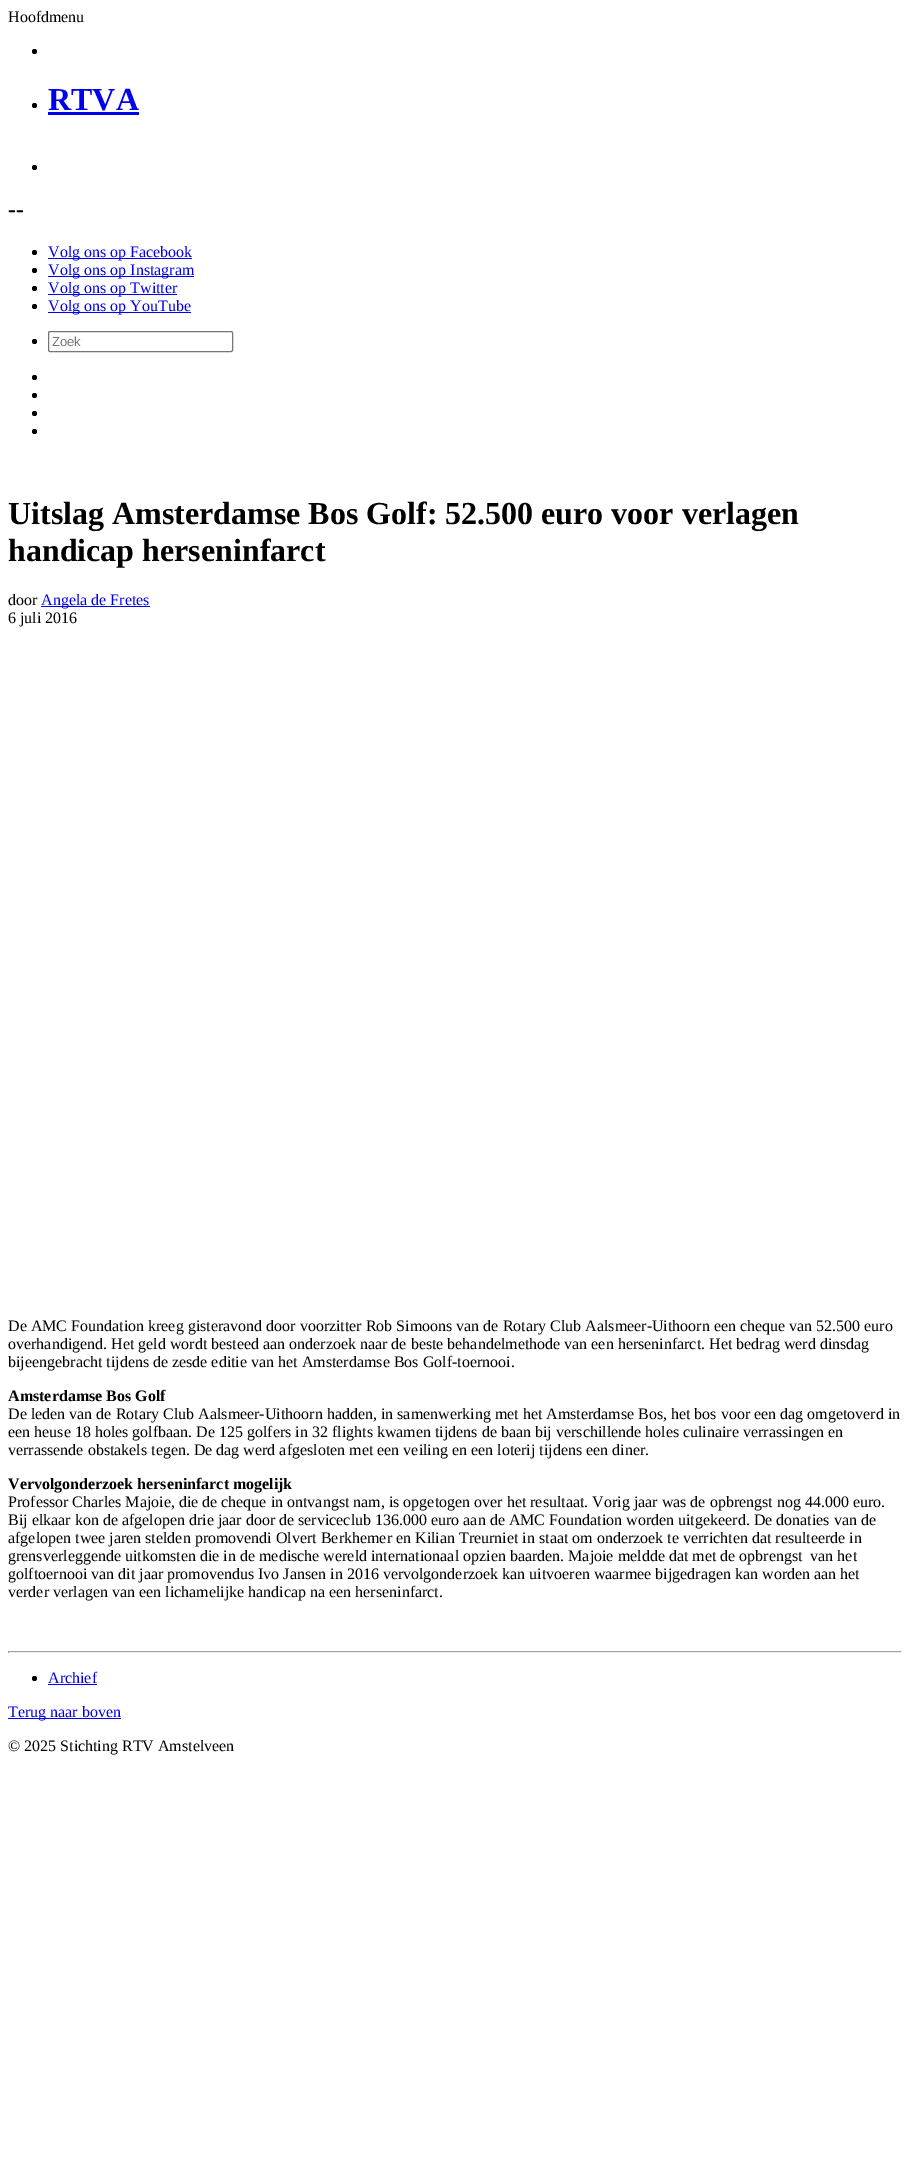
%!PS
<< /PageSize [910 2158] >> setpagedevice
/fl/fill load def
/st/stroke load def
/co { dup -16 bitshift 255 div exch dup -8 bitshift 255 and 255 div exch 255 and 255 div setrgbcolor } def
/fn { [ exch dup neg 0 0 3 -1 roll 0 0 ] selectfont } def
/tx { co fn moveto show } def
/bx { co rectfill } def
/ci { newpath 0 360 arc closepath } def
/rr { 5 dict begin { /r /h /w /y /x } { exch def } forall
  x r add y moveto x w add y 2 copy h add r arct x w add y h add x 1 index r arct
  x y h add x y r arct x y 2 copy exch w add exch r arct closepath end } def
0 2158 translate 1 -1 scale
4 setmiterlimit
0 0 910 2158 16#FFFFFF bx
16#000000 co
34.5 51.5 2.5 ci fl
34.5 105.5 2.5 ci fl
48 112 91 3 16#0000EE bx
16#000000 co
34.5 167.5 2.5 ci fl
34.5 252.5 2.5 ci fl
48 258 144 1 16#0000EE bx
16#000000 co
34.5 270.5 2.5 ci fl
48 276 146 1 16#0000EE bx
16#000000 co
34.5 288.5 2.5 ci fl
48 294 129 1 16#0000EE bx
16#000000 co
34.5 306.5 2.5 ci fl
48 312 143 1 16#0000EE bx
16#000000 co
34.5 341.5 2.5 ci fl
16#767676 co
48.5 331.5 184 20 1.5 rr st
16#000000 co
34.5 377.5 2.5 ci fl
34.5 395.5 2.5 ci fl
34.5 413.5 2.5 ci fl
34.5 431.5 2.5 ci fl
41 606 109 1 16#0000EE bx
8 1651 894 1 16#9F9F9F bx
901 1651 1 2 16#EEEEEE bx
8 1652 894 1 16#EEEEEE bx
8 1651 1 2 16#9F9F9F bx
16#000000 co
34.5 1678.5 2.5 ci fl
48 1684 49 1 16#0000EE bx
8 1718 113 1 16#0000EE bx
(Hoofdmenu) 8 22 /LiberationSerif-Regular 16 16#000000 tx
(RTVA) 48 110 /LiberationSerif-Bold 32 16#0000EE tx
(--) 8 217 /LiberationSerif-Bold 24 16#000000 tx
(Volg ons op Facebook) 48 257 /LiberationSerif-Regular 16 16#0000EE tx
(Volg ons op Instagram) 48 275 /LiberationSerif-Regular 16 16#0000EE tx
(Volg ons op Twitter) 48 293 /LiberationSerif-Regular 16 16#0000EE tx
(Volg ons op YouTube) 48 311 /LiberationSerif-Regular 16 16#0000EE tx
(Zoek) 52 346 /LiberationSans-Regular 13 16#757575 tx
(Uitslag Amsterdamse Bos Golf: 52.500 euro voor verlagen) 8 524 /LiberationSerif-Bold 32 16#000000 tx
(handicap herseninfarct) 8 561 /LiberationSerif-Bold 32 16#000000 tx
(door) 8 605 /LiberationSerif-Regular 16 16#000000 tx
(Angela de Fretes) 41 605 /LiberationSerif-Regular 16 16#0000EE tx
(6 juli 2016) 8 623 /LiberationSerif-Regular 16 16#000000 tx
(De AMC Foundation kreeg gisteravond door voorzitter Rob Simoons van de Rotary Club Aalsmeer-Uithoorn een cheque van 52.500 euro) 8 1331 /LiberationSerif-Regular 16 16#000000 tx
(overhandigend. Het geld wordt besteed aan onderzoek naar de beste behandelmethode van een herseninfarct. Het bedrag werd dinsdag) 8 1349 /LiberationSerif-Regular 16 16#000000 tx
(bijeengebracht tijdens de zesde editie van het Amsterdamse Bos Golf-toernooi.) 8 1367 /LiberationSerif-Regular 16 16#000000 tx
(Amsterdamse Bos Golf) 8 1401 /LiberationSerif-Bold 16 16#000000 tx
(De leden van de Rotary Club Aalsmeer-Uithoorn hadden, in samenwerking met het Amsterdamse Bos, het bos voor een dag omgetoverd in) 8 1419 /LiberationSerif-Regular 16 16#000000 tx
(een heuse 18 holes golfbaan. De 125 golfers in 32 flights kwamen tijdens de baan bij verschillende holes culinaire verrassingen en) 8 1437 /LiberationSerif-Regular 16 16#000000 tx
(verrassende obstakels tegen. De dag werd afgesloten met een veiling en een loterij tijdens een diner.) 8 1455 /LiberationSerif-Regular 16 16#000000 tx
(Vervolgonderzoek herseninfarct mogelijk) 8 1489 /LiberationSerif-Bold 16 16#000000 tx
(Professor Charles Majoie, die de cheque in ontvangst nam, is opgetogen over het resultaat. Vorig jaar was de opbrengst nog 44.000 euro.) 8 1507 /LiberationSerif-Regular 16 16#000000 tx
(Bij elkaar kon de afgelopen drie jaar door de serviceclub 136.000 euro aan de AMC Foundation worden uitgekeerd. De donaties van de) 8 1525 /LiberationSerif-Regular 16 16#000000 tx
(afgelopen twee jaren stelden promovendi Olvert Berkhemer en Kilian Treurniet in staat om onderzoek te verrichten dat resulteerde in) 8 1543 /LiberationSerif-Regular 16 16#000000 tx
(grensverleggende uitkomsten die in de medische wereld internationaal opzien baarden. Majoie meldde dat met de opbrengst  van het) 8 1561 /LiberationSerif-Regular 16 16#000000 tx
(golftoernooi van dit jaar promovendus Ivo Jansen in 2016 vervolgonderzoek kan uitvoeren waarmee bijgedragen kan worden aan het) 8 1579 /LiberationSerif-Regular 16 16#000000 tx
(verder verlagen van een lichamelijke handicap na een herseninfarct.) 8 1597 /LiberationSerif-Regular 16 16#000000 tx
(Archief) 48 1683 /LiberationSerif-Regular 16 16#0000EE tx
(Terug naar boven) 8 1717 /LiberationSerif-Regular 16 16#0000EE tx
(© 2025 Stichting RTV Amstelveen) 8 1751 /LiberationSerif-Regular 16 16#000000 tx
showpage
